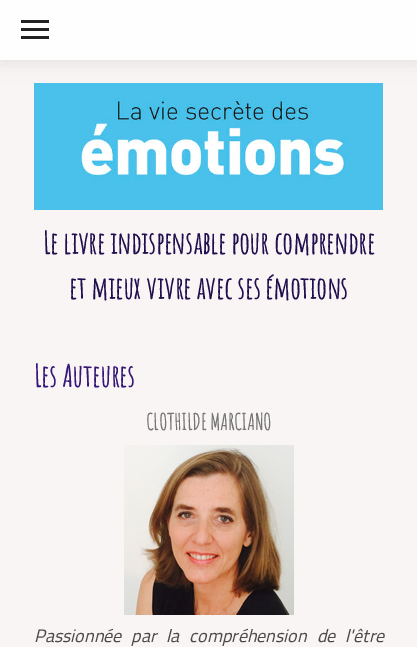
%!PS
<< /PageSize [417 647] /PageUsesTransparency true >> setpagedevice
/mt/moveto load def
/co { dup -16 bitshift 255 div exch dup -8 bitshift 255 and 255 div exch 255 and 255 div setrgbcolor } def
/fn { [ exch dup neg 0 0 3 -1 roll 0 0 ] selectfont } def
/tx { co fn moveto show } def
/bx { co rectfill } def
/al { dup .setfillconstantalpha .setstrokeconstantalpha } def
/rr { 5 dict begin { /r /h /w /y /x } { exch def } forall
  x r add y moveto x w add y 2 copy h add r arct x w add y h add x 1 index r arct
  x y h add x y r arct x y 2 copy exch w add exch r arct closepath end } def
/sh { 12 dict begin { /a /b /q /h /w /y /x } { exch def } forall gsave /was 0 def
  9 -2 -9 { dup b mul 4 div /e exch def 1 sub .425 mul 2.718 exch exp 1 add a .99 .min exch div /now exch def
    1 1 now sub 1 was sub div sub al /was now def
    w h .min e 2 mul add 0 gt { x e sub y e sub w e 2 mul add h e 2 mul add
      q e add b .6 mul add w h .min 2 div e add .min 0 .max rr fill } if } for grestore end } def
/im { 5 dict begin { /h /w /y /x /name } { exch def } forall
  gsave x y translate w h scale
  w h 8 [w 0 0 h 0 0] name (r) file false 3 colorimage grestore end } def
0 .pushpdf14devicefilter
0 647 translate 1 -1 scale
4 setmiterlimit
0 0 417 647 16#FAF5F5 bx
(media/1.raw) 34 83 349 127 im
16#000000 co
0 0 417 60 0 10 .1 sh
0 0 417 60 16#FFFEFE bx
21 28 28 3 16#222222 bx
21 20 28 3 16#222222 bx
21 36 28 3 16#222222 bx
(media/2.raw) 124 445 170 170 im
(Le livre indispensable pour comprendre) 43 254 /AmaticSC-Bold 30 16#200F4E tx
(et mieux vivre avec ses émotions) 69 299 /AmaticSC-Bold 30 16#200F4E tx
(Les Auteures) 34 387 /AmaticSC-Bold 30 16#351777 tx
(CLOTHILDE MARCIANO) 146 430 /AmaticSC-Bold 22 16#757575 tx
/Cairo-Italic 18 fn
16#4A4A4A co
34 642 mt 6 0 32 (Passionnée par la compréhension de l'être) widthshow
.poppdf14devicefilter showpage
